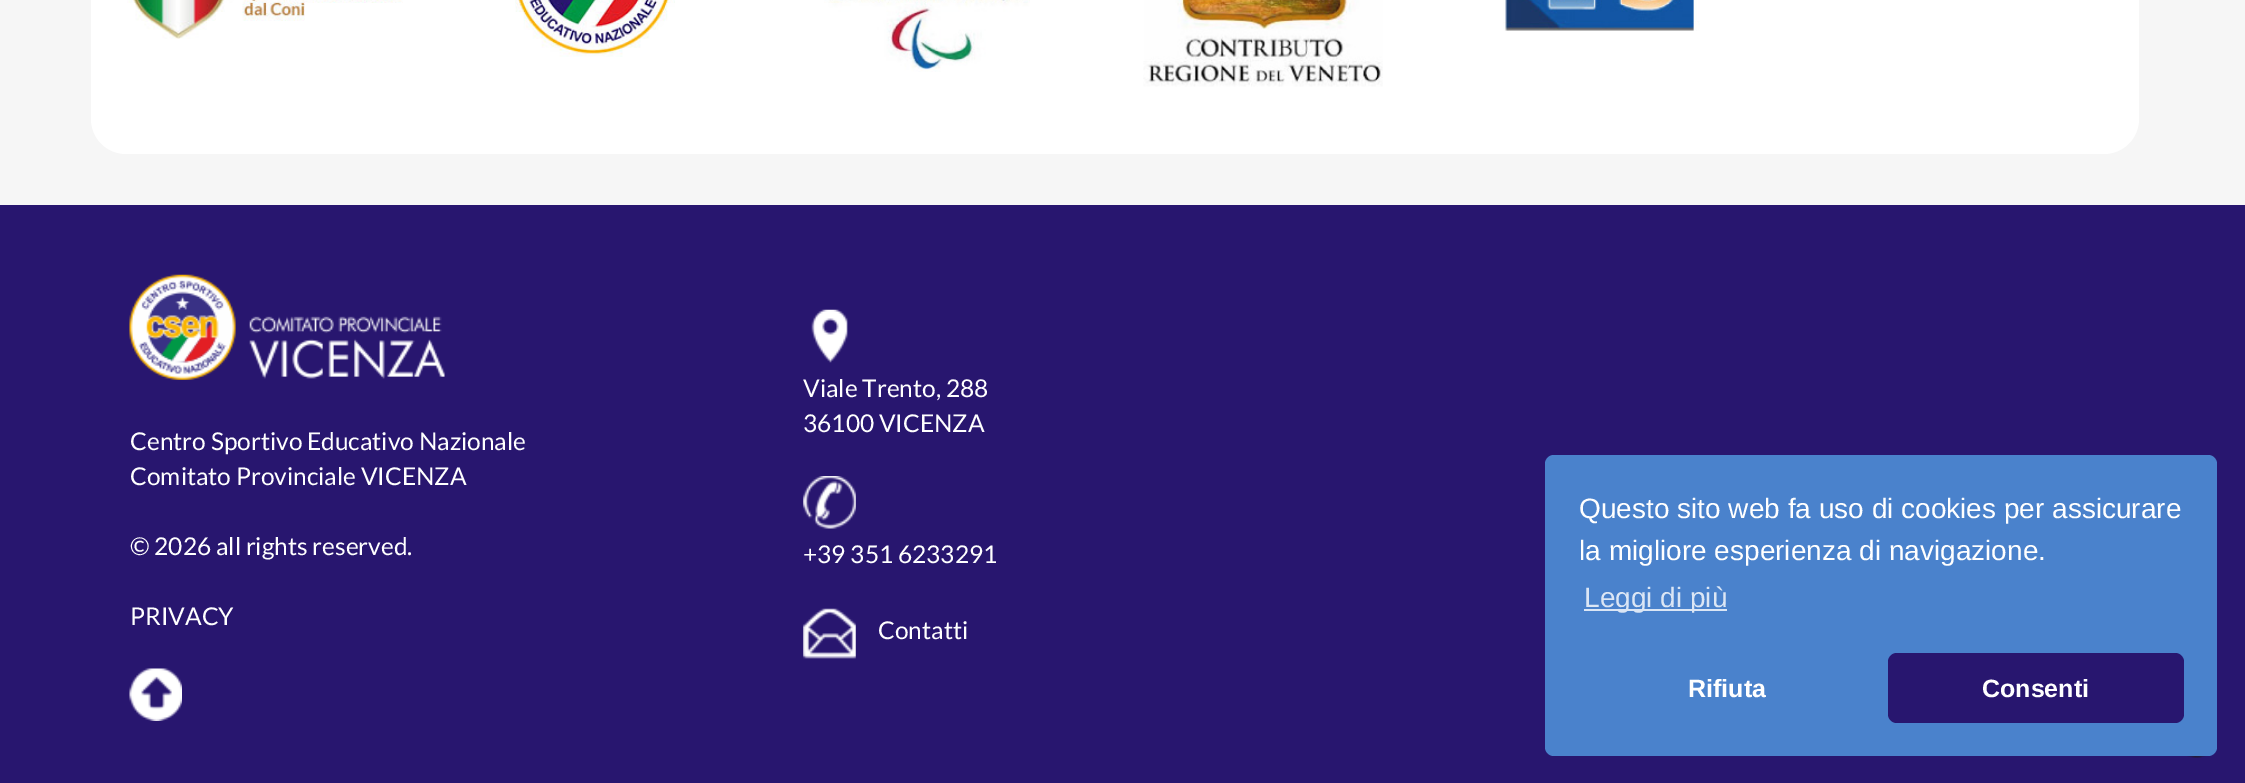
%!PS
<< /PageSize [2245 783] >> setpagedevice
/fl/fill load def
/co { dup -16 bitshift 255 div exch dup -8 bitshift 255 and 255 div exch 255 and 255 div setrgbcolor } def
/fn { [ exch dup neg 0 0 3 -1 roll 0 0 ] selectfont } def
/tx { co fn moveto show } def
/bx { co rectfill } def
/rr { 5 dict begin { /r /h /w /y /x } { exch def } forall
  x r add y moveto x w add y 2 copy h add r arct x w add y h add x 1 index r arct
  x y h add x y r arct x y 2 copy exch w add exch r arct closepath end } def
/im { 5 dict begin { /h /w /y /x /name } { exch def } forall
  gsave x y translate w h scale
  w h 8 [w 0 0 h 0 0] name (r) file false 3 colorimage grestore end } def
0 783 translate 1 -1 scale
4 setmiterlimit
0 0 2245 783 16#F6F6F6 bx
16#FFFFFF co
91 -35 2048 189 35 rr fl
(media/1.raw) 127 0 276 39 im
(media/2.raw) 515 0 160 57 im
(media/3.raw) 824 0 206 72 im
(media/4.raw) 1143 0 240 87 im
(media/5.raw) 1503 0 197 31 im
0 205 2245 578 16#28166F bx
(media/6.raw) 129 274 316 106 im
(media/7.raw) 129 668 53 53 im
(media/8.raw) 811 309 37 54 im
(media/9.raw) 803 476 53 53 im
(media/10.raw) 803 608 53 51 im
(media/11.raw) 2187 756 19 2 im
16#4A82CC co
1545 455 672 301 9 rr fl
1584 609 143 2 16#DBE6F5 bx
16#28166F co
1888 653 296 70 9 rr fl
(Centro Sportivo Educativo Nazionale) 130 450 /Lato-Regular 24.5 16#FFFFFF tx
(Comitato Provinciale VICENZA) 130 485 /Lato-Regular 24.5 16#FFFFFF tx
(© 2026 all rights reserved.) 130 555 /Lato-Regular 24.5 16#FFFFFF tx
(PRIVACY) 130 625 /Lato-Regular 24.5 16#FFFFFF tx
(Viale Trento, 288) 803 397 /Lato-Regular 24.5 16#FFFFFF tx
(36100 VICENZA) 803 432 /Lato-Regular 24.5 16#FFFFFF tx
(+39 351 6233291) 803 563 /Lato-Regular 24.5 16#FFFFFF tx
(Contatti) 878 639 /Lato-Regular 24.5 16#FFFFFF tx
(Questo sito web fa uso di cookies per assicurare) 1579 518 /LiberationSans-Regular 28 16#FFFFFF tx
(la migliore esperienza di navigazione.) 1579 560 /LiberationSans-Regular 28 16#FFFFFF tx
(Leggi di più) 1584 607 /LiberationSans-Regular 28 16#DBE6F5 tx
(Rifiuta) 1688 697 /LiberationSans-Bold 25 16#FFFFFF tx
(Consenti) 1982 697 /LiberationSans-Bold 25 16#FFFFFF tx
showpage
